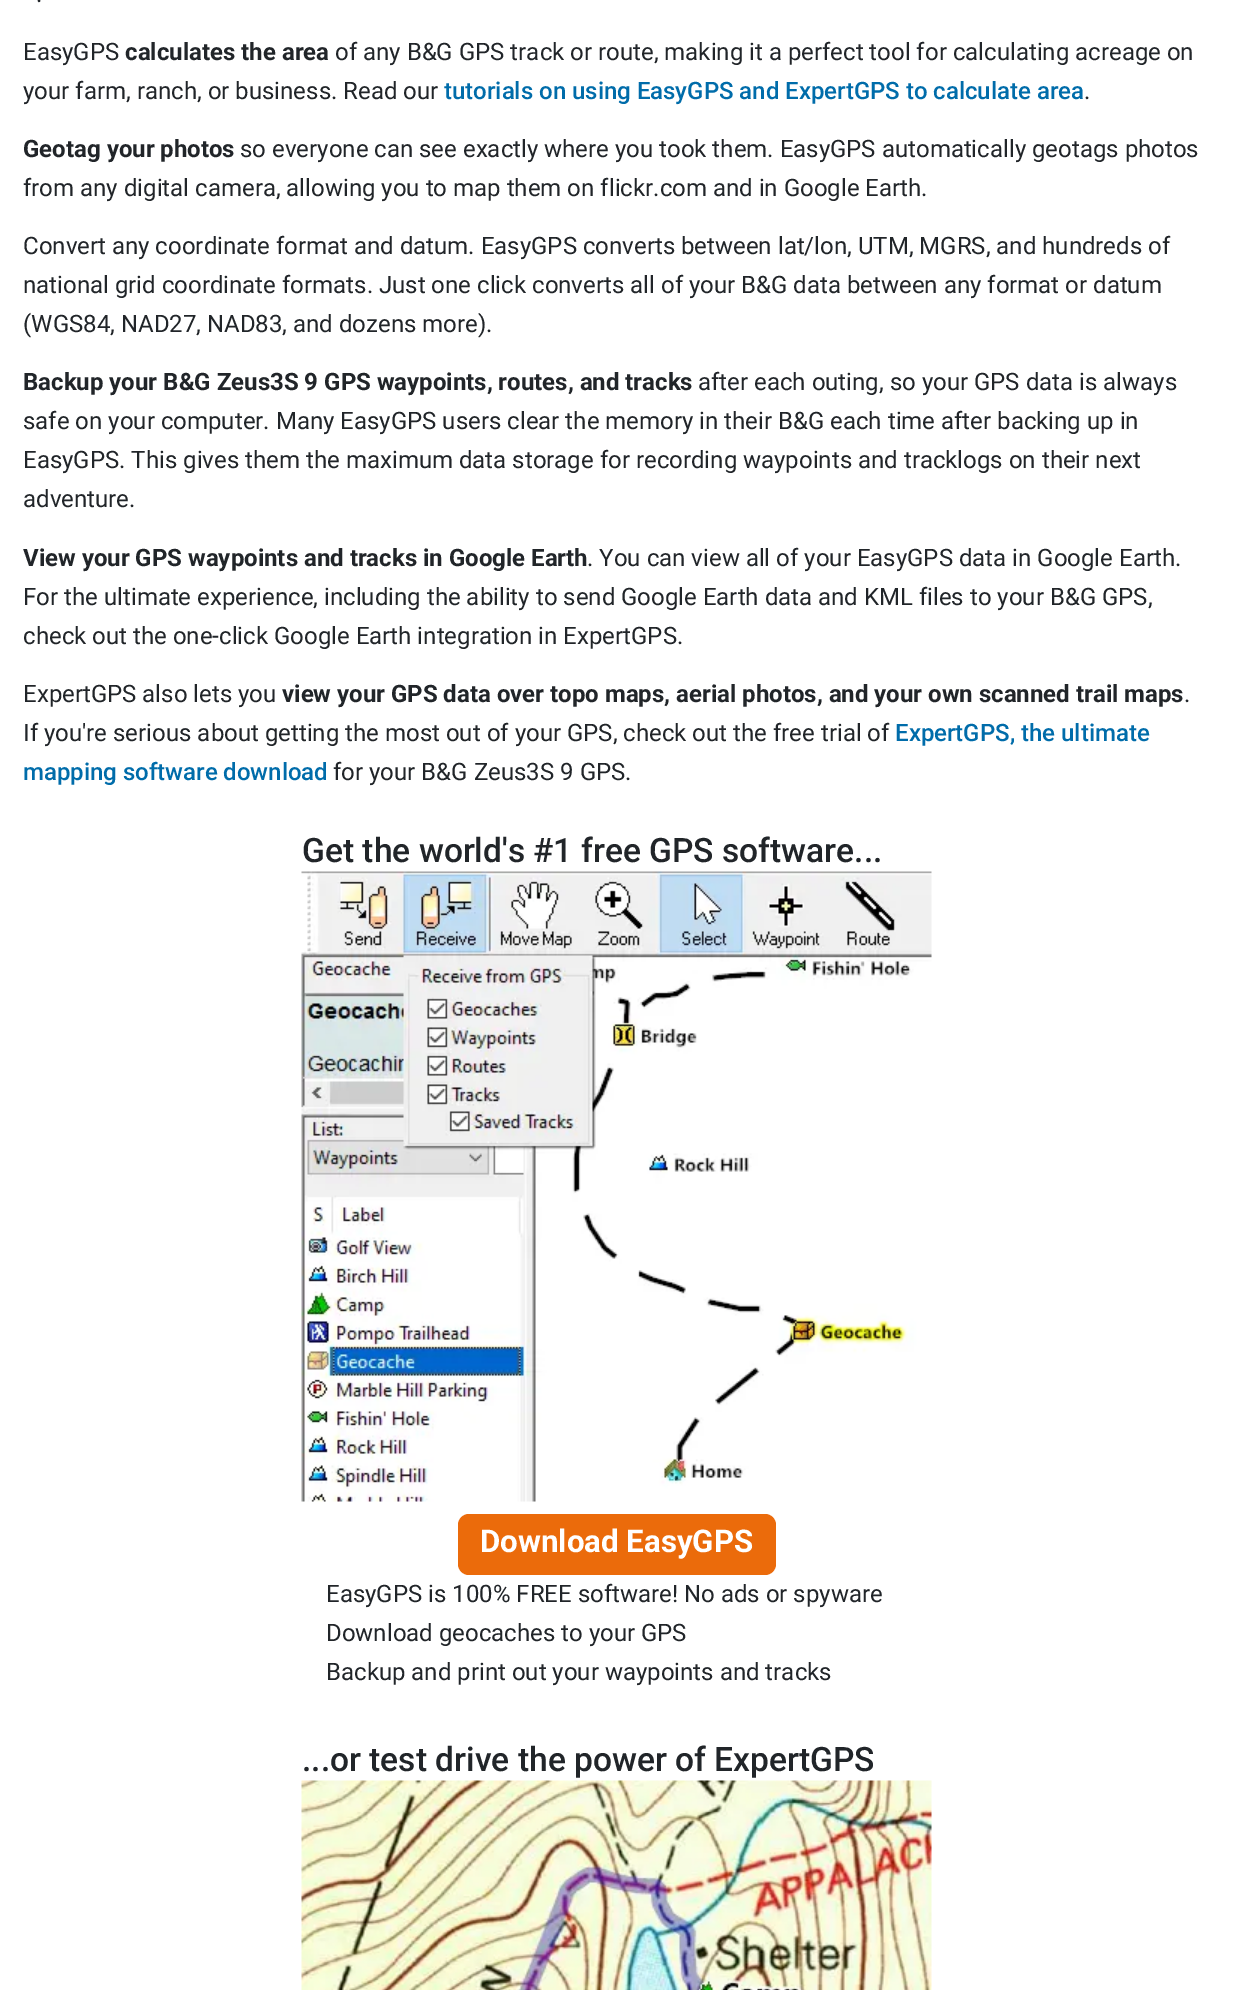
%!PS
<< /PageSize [1233 1990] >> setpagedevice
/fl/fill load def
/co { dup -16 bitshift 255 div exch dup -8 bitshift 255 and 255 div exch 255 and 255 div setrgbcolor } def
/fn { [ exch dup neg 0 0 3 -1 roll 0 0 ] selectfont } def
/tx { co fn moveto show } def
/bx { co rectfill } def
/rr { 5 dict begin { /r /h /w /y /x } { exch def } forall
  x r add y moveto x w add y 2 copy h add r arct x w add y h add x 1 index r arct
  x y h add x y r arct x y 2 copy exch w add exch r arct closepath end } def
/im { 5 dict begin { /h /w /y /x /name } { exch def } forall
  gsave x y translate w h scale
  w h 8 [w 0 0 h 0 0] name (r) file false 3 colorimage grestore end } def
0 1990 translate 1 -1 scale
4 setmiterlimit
0 0 1233 1990 16#FFFFFF bx
(media/1.raw) 301 871 631 631 im
16#EB6B0B co
458 1514 318 61 11 rr fl
(media/2.raw) 301 1780 631 210 im
(.) 36 2 /Roboto-Regular 24 16#212529 tx
(EasyGPS) 23 60 /Roboto-Regular 24 16#212529 tx
(calculates the area) 125 60 /Roboto-Bold 24 16#212529 tx
(of any B&G GPS track or route, making it a perfect tool for calculating acreage on) 335 60 /Roboto-Regular 24 16#212529 tx
(your farm, ranch, or business. Read our) 23 99 /Roboto-Regular 24 16#212529 tx
(tutorials on using EasyGPS and ExpertGPS to calculate area) 444 99 /Roboto-Medium 24 16#006CAA tx
(.) 1084 99 /Roboto-Regular 24 16#212529 tx
(Geotag your photos) 23 157 /Roboto-Bold 24 16#212529 tx
(so everyone can see exactly where you took them. EasyGPS automatically geotags photos) 240 157 /Roboto-Regular 24 16#212529 tx
(from any digital camera, allowing you to map them on flickr.com and in Google Earth.) 23 196 /Roboto-Regular 24 16#212529 tx
(Convert any coordinate format and datum. EasyGPS converts between lat/lon, UTM, MGRS, and hundreds of) 23 254 /Roboto-Regular 24 16#212529 tx
(national grid coordinate formats. Just one click converts all of your B&G data between any format or datum) 23 293 /Roboto-Regular 24 16#212529 tx
(\(WGS84, NAD27, NAD83, and dozens more\).) 23 332 /Roboto-Regular 24 16#212529 tx
(Backup your B&G Zeus3S 9 GPS waypoints, routes, and tracks) 23 390 /Roboto-Bold 24 16#212529 tx
(after each outing, so your GPS data is always) 698 390 /Roboto-Regular 24 16#212529 tx
(safe on your computer. Many EasyGPS users clear the memory in their B&G each time after backing up in) 23 429 /Roboto-Regular 24 16#212529 tx
(EasyGPS. This gives them the maximum data storage for recording waypoints and tracklogs on their next) 23 468 /Roboto-Regular 24 16#212529 tx
(adventure.) 23 507 /Roboto-Regular 24 16#212529 tx
(View your GPS waypoints and tracks in Google Earth) 23 566 /Roboto-Bold 24 16#212529 tx
(. You can view all of your EasyGPS data in Google Earth.) 587 566 /Roboto-Regular 24 16#212529 tx
(For the ultimate experience, including the ability to send Google Earth data and KML files to your B&G GPS,) 23 605 /Roboto-Regular 24 16#212529 tx
(check out the one-click Google Earth integration in ExpertGPS.) 23 644 /Roboto-Regular 24 16#212529 tx
(ExpertGPS also lets you) 23 702 /Roboto-Regular 24 16#212529 tx
(view your GPS data over topo maps, aerial photos, and your own scanned trail maps) 282 702 /Roboto-Bold 24 16#212529 tx
(.) 1184 702 /Roboto-Regular 24 16#212529 tx
(If you're serious about getting the most out of your GPS, check out the free trial of) 23 741 /Roboto-Regular 24 16#212529 tx
(ExpertGPS, the ultimate) 895 741 /Roboto-Medium 24 16#006CAA tx
(mapping software download) 23 780 /Roboto-Medium 24 16#006CAA tx
(for your B&G Zeus3S 9 GPS.) 333 780 /Roboto-Regular 24 16#212529 tx
(Get the world's #1 free GPS software...) 302 862 /Roboto-Medium 33.6 16#212529 tx
(Download EasyGPS) 480 1552 /Roboto-Bold 31.25 16#FFFFFF tx
(EasyGPS is 100% FREE software! No ads or spyware) 326 1602 /Roboto-Regular 24 16#212529 tx
(Download geocaches to your GPS) 326 1641 /Roboto-Regular 24 16#212529 tx
(Backup and print out your waypoints and tracks) 326 1680 /Roboto-Regular 24 16#212529 tx
(...or test drive the power of ExpertGPS) 302 1771 /Roboto-Medium 33.6 16#212529 tx
showpage
